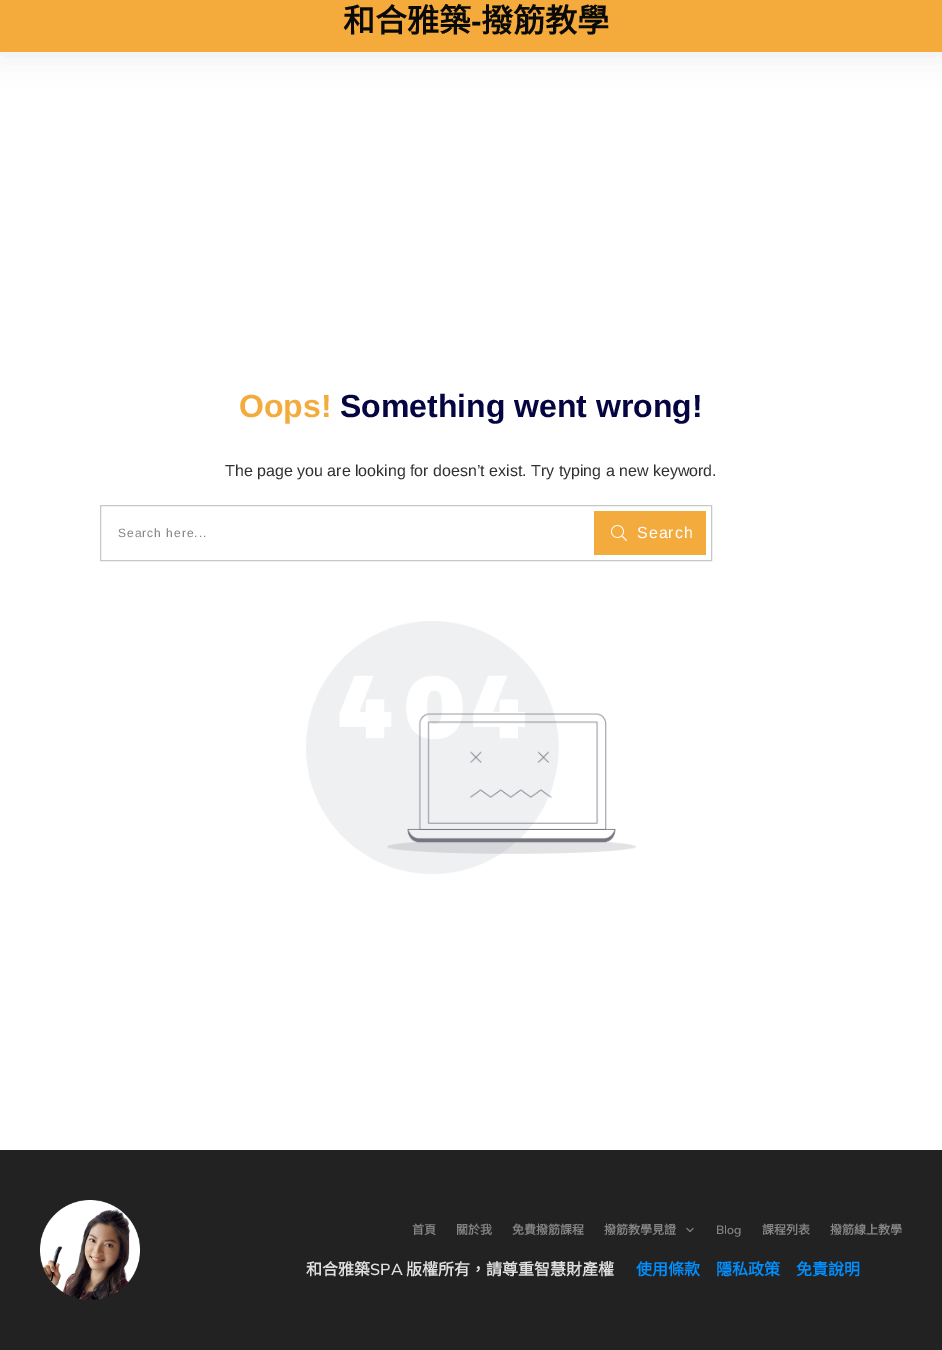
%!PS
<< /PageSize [942 1350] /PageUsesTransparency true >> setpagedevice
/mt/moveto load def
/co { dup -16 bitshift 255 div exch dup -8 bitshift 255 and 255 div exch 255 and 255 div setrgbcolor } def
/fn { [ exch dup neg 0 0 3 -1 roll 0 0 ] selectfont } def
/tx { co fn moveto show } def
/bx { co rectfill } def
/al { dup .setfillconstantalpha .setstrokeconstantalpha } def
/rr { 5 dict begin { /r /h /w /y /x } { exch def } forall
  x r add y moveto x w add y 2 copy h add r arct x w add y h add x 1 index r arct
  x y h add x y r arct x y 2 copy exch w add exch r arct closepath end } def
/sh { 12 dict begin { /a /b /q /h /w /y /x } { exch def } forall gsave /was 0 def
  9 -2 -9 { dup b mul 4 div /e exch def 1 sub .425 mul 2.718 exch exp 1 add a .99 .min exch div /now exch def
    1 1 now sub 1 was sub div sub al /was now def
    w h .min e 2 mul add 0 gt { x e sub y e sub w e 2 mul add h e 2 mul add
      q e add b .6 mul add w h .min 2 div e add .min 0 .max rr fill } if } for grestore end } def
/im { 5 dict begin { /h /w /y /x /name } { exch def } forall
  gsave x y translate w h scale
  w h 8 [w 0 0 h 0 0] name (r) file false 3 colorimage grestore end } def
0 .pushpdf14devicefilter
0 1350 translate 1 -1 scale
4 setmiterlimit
0 0 942 1350 16#FFFFFF bx
16#000000 co
0 -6 942 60 0 15 .08 sh
0 0 942 52 16#F4AB3C bx
16#C7C7C7 co
100.5 505.5 611 55 rectstroke
594 511 112 44 16#F4AB3E bx
(media/1.raw) 611 525 16 16 im
(media/2.raw) 306 621 330 253 im
0 1150 942 200 16#222222 bx
(media/3.raw) 40 1200 100 100 im
(media/4.raw) 686 1227 8 6 im
(和合雅築) 343 32 /NotoSansCJKTC-Bold 32 16#0A0A0A tx
(-) 471 32 /LiberationSans-Bold 32 16#0A0A0A tx
(撥筋教學) 481 32 /NotoSansCJKTC-Bold 32 16#0A0A0A tx
(Oops!) 239 417 /LiberationSans-Bold 32 16#F4AB3E tx
(Something went wrong!) 340 417 /LiberationSans-Bold 32 16#050541 tx
(The page you are looking for doesn’t exist. Try typing a new keyword.) 225 476 /LiberationSans-Regular 16 16#2F2F2F tx
/LiberationSans-Regular 12 fn
16#858585 co
118 537 mt 1 0 (Search here...) ashow
/LiberationSans-Regular 16 fn
16#FFFFFF co
637 538 mt 1 0 (Search) ashow
(首頁) 412 1234 /NotoSansCJKTC-Bold 12 16#858585 tx
(關於我) 456 1234 /NotoSansCJKTC-Bold 12 16#858585 tx
(免費撥筋課程) 512 1234 /NotoSansCJKTC-Bold 12 16#858585 tx
(撥筋教學見證) 604 1234 /NotoSansCJKTC-Bold 12 16#858585 tx
(Blog) 716 1234 /Mulish-SemiBold 12 16#858585 tx
(課程列表) 762 1234 /NotoSansCJKTC-Bold 12 16#858585 tx
(撥筋線上教學) 830 1234 /NotoSansCJKTC-Bold 12 16#858585 tx
(和合雅築) 306 1275 /NotoSansCJKTC-Bold 16 16#DEDEDE tx
(SPA) 370 1275 /Mulish-SemiBold 16 16#DEDEDE tx
(版權所有，請尊重智慧財產權) 406 1275 /NotoSansCJKTC-Bold 16 16#DEDEDE tx
(使用條款) 636 1275 /NotoSansCJKTC-Bold 16 16#008FFF tx
(隱私政策) 716 1275 /NotoSansCJKTC-Bold 16 16#008FFF tx
(免責說明) 796 1275 /NotoSansCJKTC-Bold 16 16#008FFF tx
.poppdf14devicefilter showpage
